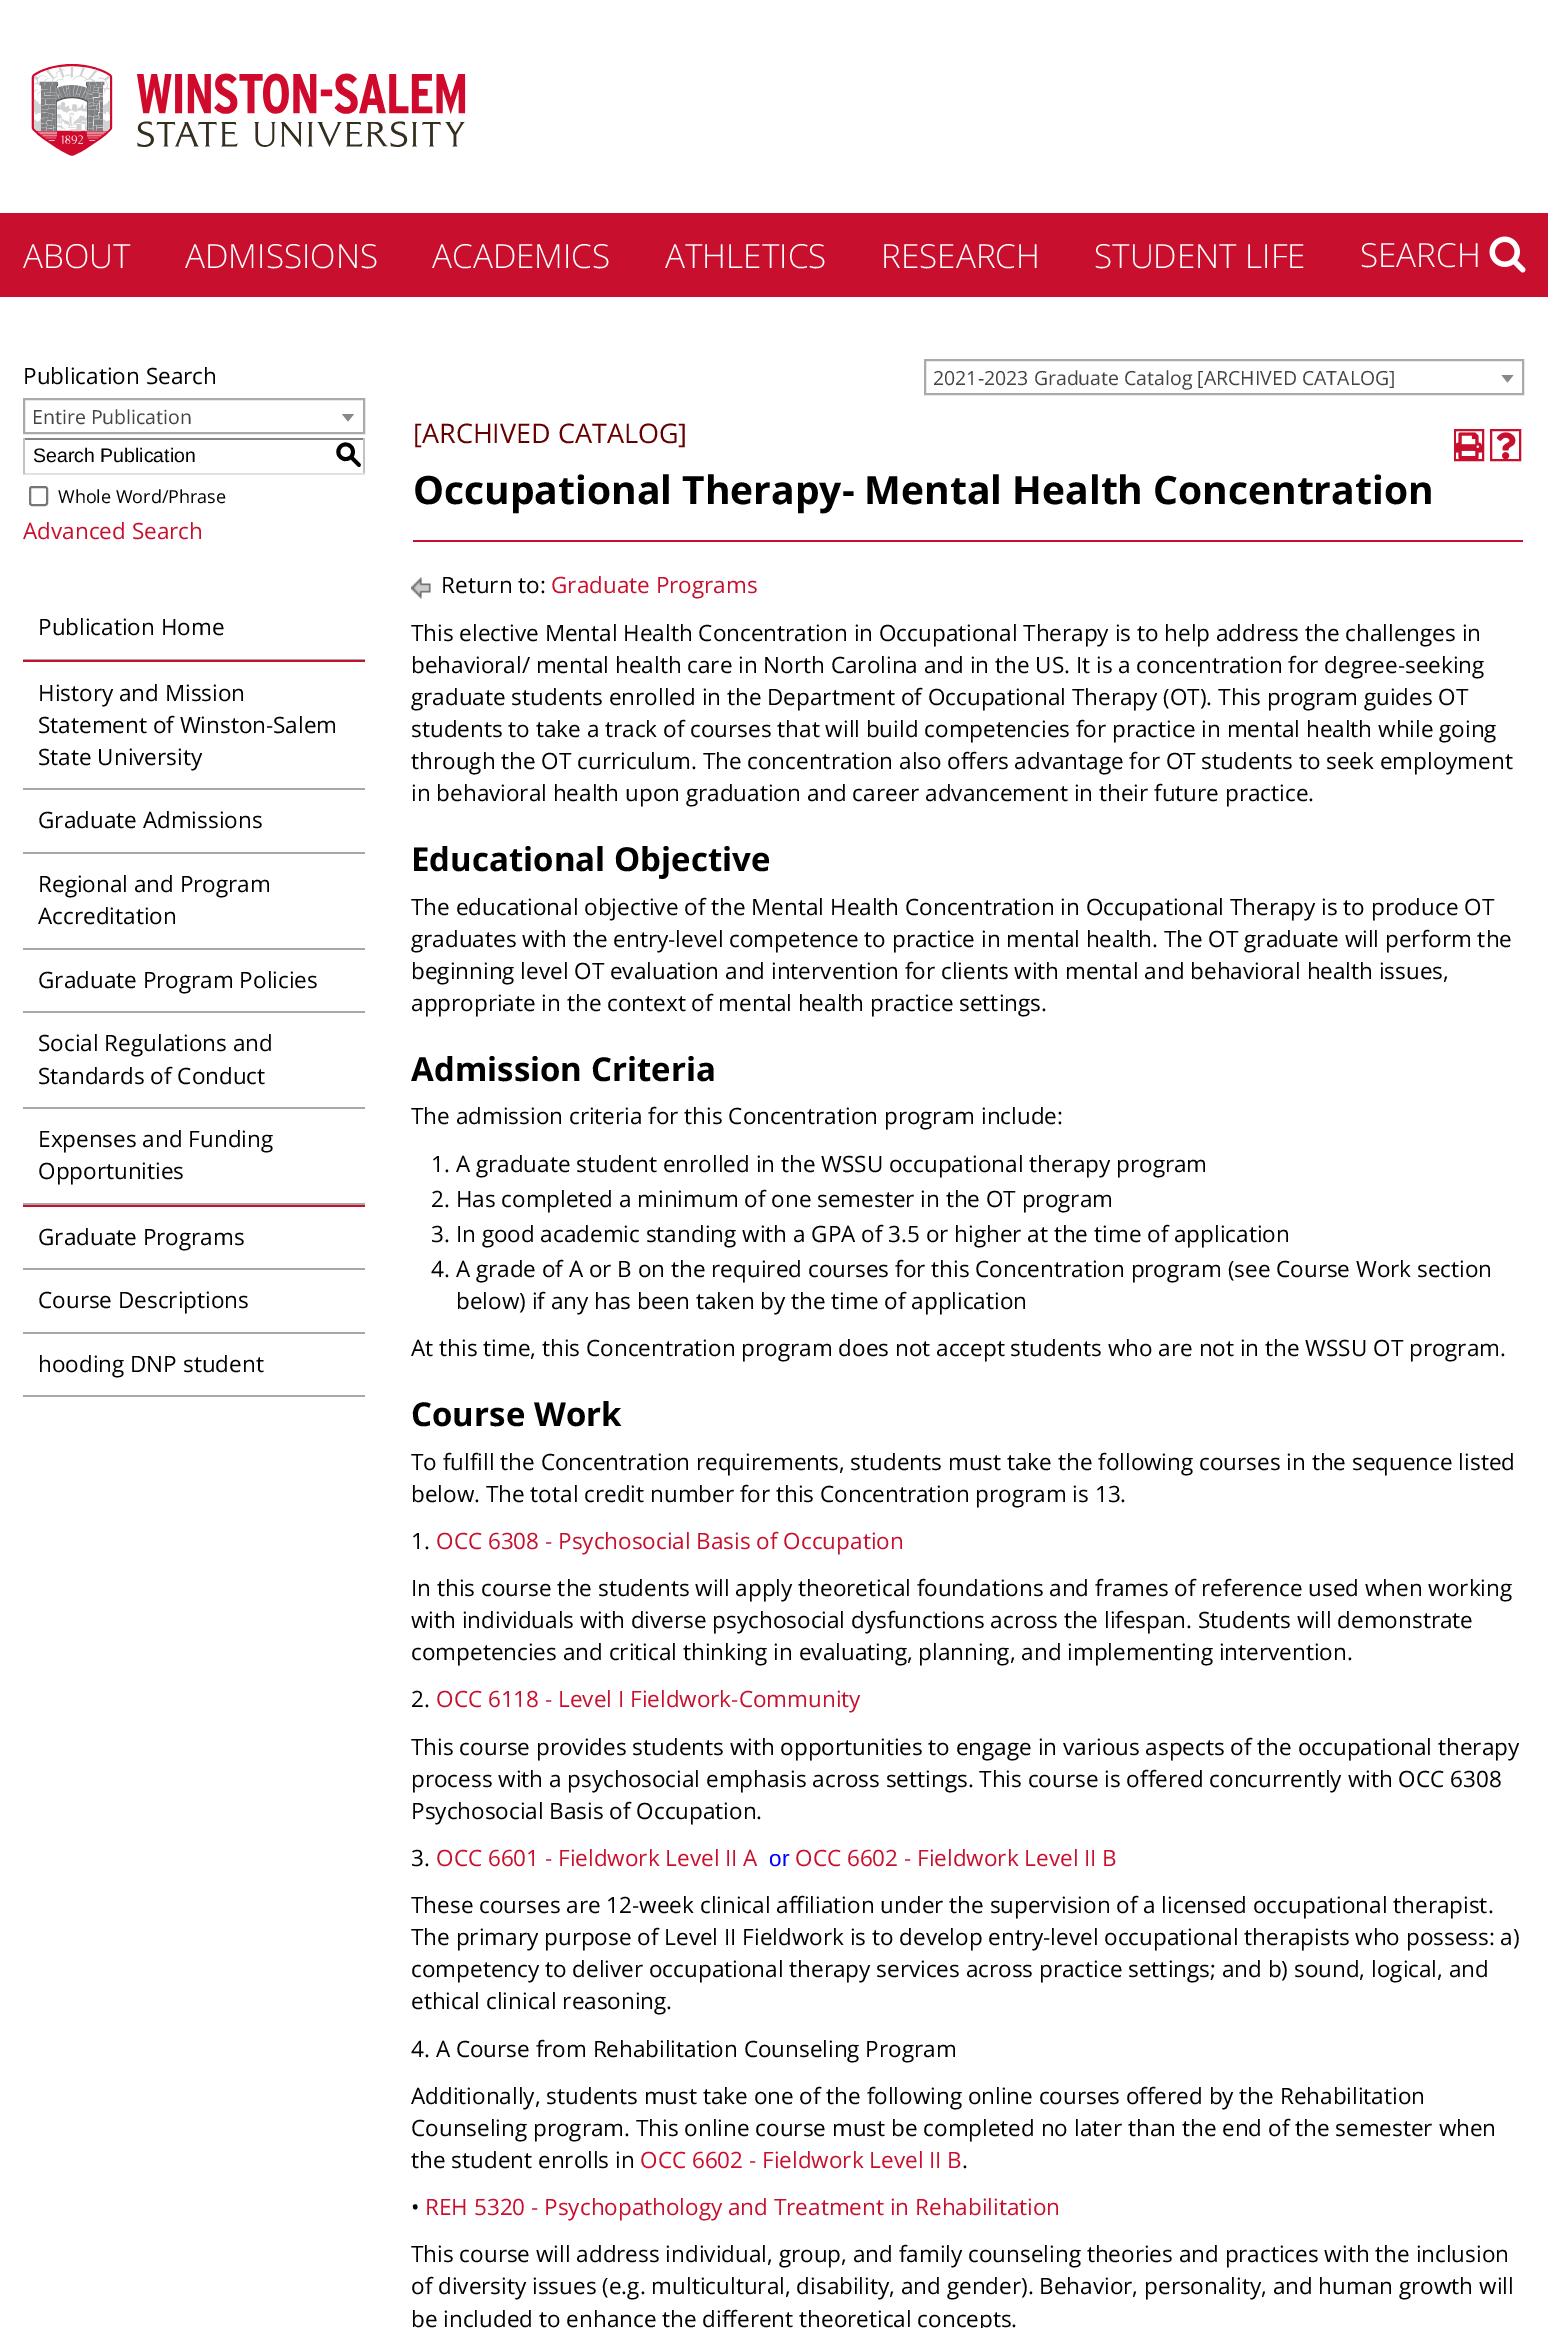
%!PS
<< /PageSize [1548 2328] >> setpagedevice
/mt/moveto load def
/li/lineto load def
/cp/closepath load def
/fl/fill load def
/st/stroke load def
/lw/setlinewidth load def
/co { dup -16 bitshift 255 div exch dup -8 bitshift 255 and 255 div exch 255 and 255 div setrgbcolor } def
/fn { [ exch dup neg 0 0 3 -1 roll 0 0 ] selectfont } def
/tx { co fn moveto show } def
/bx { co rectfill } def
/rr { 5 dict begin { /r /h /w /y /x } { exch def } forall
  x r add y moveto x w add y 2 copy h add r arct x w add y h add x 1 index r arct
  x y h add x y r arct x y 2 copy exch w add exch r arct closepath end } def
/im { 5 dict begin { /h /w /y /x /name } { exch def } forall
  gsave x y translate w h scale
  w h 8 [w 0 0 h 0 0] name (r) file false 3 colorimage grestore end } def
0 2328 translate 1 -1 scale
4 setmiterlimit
0 0 1548 2328 16#FFFFFF bx
(media/1.raw) 31 64 435 92 im
0 213 1548 84 16#C8102E bx
(media/2.raw) 1489 236 37 37 im
16#AAAAAA co
2 lw
24 399 340 34 rectstroke
16#888888 co
342 414 mt 354 414 li 348 421.5 li cp fl
23 438 342 2 16#848484 bx
363 438 2 36 16#C1C1C1 bx
23 473 342 2 16#E1E1E1 bx
23 438 2 36 16#C1C1C1 bx
16#767676 co
30 487 17 18 2 rr st
23 659 342 1 16#A7A8AA bx
23 660 342 2 16#C8102E bx
23 788 342 2 16#A7A8AA bx
23 852 342 2 16#A7A8AA bx
23 948 342 2 16#A7A8AA bx
23 1011 342 2 16#A7A8AA bx
23 1107 342 2 16#A7A8AA bx
23 1203 342 2 16#A7A8AA bx
23 1205 342 2 16#C8102E bx
23 1268 342 2 16#A7A8AA bx
23 1332 342 2 16#A7A8AA bx
23 1395 342 2 16#A7A8AA bx
16#C8102E co
1455 430 28 30 rectstroke
(media/3.raw) 1456 432 26 27 im
1491 430 29 30 rectstroke
(media/4.raw) 1496 432 20 27 im
413 540 1110 2 16#C8102E bx
(media/5.raw) 411 577 20 22 im
16#AAAAAA co
925 360 598 34 rectstroke
16#888888 co
1501.5 375 mt 1513.5 375 li 1507.5 382.5 li cp fl
(ABOUT) 23 268 /OpenSans-Light 33.25 16#FFFFFF tx
(ADMISSIONS) 185 268 /OpenSans-Light 33.25 16#FFFFFF tx
(ACADEMICS) 432 268 /OpenSans-Light 33.25 16#FFFFFF tx
(ATHLETICS) 665 268 /OpenSans-Light 33.25 16#FFFFFF tx
(RESEARCH) 881 268 /OpenSans-Light 33.25 16#FFFFFF tx
(STUDENT LIFE) 1094 268 /OpenSans-Light 33.25 16#FFFFFF tx
(SEARCH) 1360 267 /OpenSans-Light 33.25 16#FFFFFF tx
(Publication Search) 23 384 /OpenSans-Regular 22.5 16#000000 tx
(Entire Publication) 32 424 /OpenSans-Regular 19.5 16#444444 tx
(Search Publication) 33 462 /LiberationSans-Regular 19.5 16#000000 tx
(S) 335 463 /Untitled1-Medium 27 16#000000 tx
(Whole Word/Phrase) 58 503 /OpenSans-Regular 18 16#000000 tx
(Advanced Search) 23 539 /OpenSans-Regular 22.5 16#C8102E tx
(Publication Home) 38 635 /OpenSans-Regular 22.5 16#000000 tx
(History and Mission) 38 701 /OpenSans-Regular 22.5 16#000000 tx
(Statement of Winston-Salem) 38 733 /OpenSans-Regular 22.5 16#000000 tx
(State University) 38 765 /OpenSans-Regular 22.5 16#000000 tx
(Graduate Admissions) 38 828 /OpenSans-Regular 22.5 16#000000 tx
(Regional and Program) 38 892 /OpenSans-Regular 22.5 16#000000 tx
(Accreditation) 38 924 /OpenSans-Regular 22.5 16#000000 tx
(Graduate Program Policies) 38 988 /OpenSans-Regular 22.5 16#000000 tx
(Social Regulations and) 38 1051 /OpenSans-Regular 22.5 16#000000 tx
(Standards of Conduct) 38 1084 /OpenSans-Regular 22.5 16#000000 tx
(Expenses and Funding) 38 1147 /OpenSans-Regular 22.5 16#000000 tx
(Opportunities) 38 1179 /OpenSans-Regular 22.5 16#000000 tx
(Graduate Programs) 38 1245 /OpenSans-Regular 22.5 16#000000 tx
(Course Descriptions) 38 1308 /OpenSans-Regular 22.5 16#000000 tx
(hooding DNP student) 38 1372 /OpenSans-Regular 22.5 16#000000 tx
([ARCHIVED CATALOG]) 413 443 /OpenSans-Regular 27 16#660000 tx
(Occupational Therapy- Mental Health Concentration) 413 504 /OpenSans-Bold 39 16#000000 tx
(Return to:) 441 593 /OpenSans-Regular 22.5 16#000000 tx
(Graduate Programs) 551 593 /OpenSans-Regular 22.5 16#C8102E tx
(This elective Mental Health Concentration in Occupational Therapy is to help address the challenges in) 411 641 /OpenSans-Regular 22.5 16#000000 tx
(behavioral/ mental health care in North Carolina and in the US. It is a concentration for degree-seeking) 411 673 /OpenSans-Regular 22.5 16#000000 tx
(graduate students enrolled in the Department of Occupational Therapy \(OT\). This program guides OT) 411 705 /OpenSans-Regular 22.5 16#000000 tx
(students to take a track of courses that will build competencies for practice in mental health while going) 411 737 /OpenSans-Regular 22.5 16#000000 tx
(through the OT curriculum. The concentration also offers advantage for OT students to seek employment) 411 769 /OpenSans-Regular 22.5 16#000000 tx
(in behavioral health upon graduation and career advancement in their future practice.) 411 801 /OpenSans-Regular 22.5 16#000000 tx
(Educational Objective) 411 871 /OpenSans-Bold 33 16#000000 tx
(The educational objective of the Mental Health Concentration in Occupational Therapy is to produce OT) 411 915 /OpenSans-Regular 22.5 16#000000 tx
(graduates with the entry-level competence to practice in mental health. The OT graduate will perform the) 411 947 /OpenSans-Regular 22.5 16#000000 tx
(beginning level OT evaluation and intervention for clients with mental and behavioral health issues,) 411 979 /OpenSans-Regular 22.5 16#000000 tx
(appropriate in the context of mental health practice settings.) 411 1011 /OpenSans-Regular 22.5 16#000000 tx
(Admission Criteria) 411 1081 /OpenSans-Bold 33 16#000000 tx
(The admission criteria for this Concentration program include:) 411 1124 /OpenSans-Regular 22.5 16#000000 tx
(1. A graduate student enrolled in the WSSU occupational therapy program) 431 1172 /OpenSans-Regular 22.5 16#000000 tx
(2. Has completed a minimum of one semester in the OT program) 431 1207 /OpenSans-Regular 22.5 16#000000 tx
(3. In good academic standing with a GPA of 3.5 or higher at the time of application) 431 1242 /OpenSans-Regular 22.5 16#000000 tx
(4. A grade of A or B on the required courses for this Concentration program \(see Course Work section) 431 1277 /OpenSans-Regular 22.5 16#000000 tx
(below\) if any has been taken by the time of application) 456 1309 /OpenSans-Regular 22.5 16#000000 tx
(At this time, this Concentration program does not accept students who are not in the WSSU OT program.) 411 1356 /OpenSans-Regular 22.5 16#000000 tx
(Course Work) 411 1426 /OpenSans-Bold 33 16#000000 tx
(To fulfill the Concentration requirements, students must take the following courses in the sequence listed) 411 1470 /OpenSans-Regular 22.5 16#000000 tx
(below. The total credit number for this Concentration program is 13.) 411 1502 /OpenSans-Regular 22.5 16#000000 tx
(1.) 411 1549 /OpenSans-Regular 22.5 16#000000 tx
(OCC 6308 - Psychosocial Basis of Occupation) 436 1549 /OpenSans-Regular 22.5 16#C8102E tx
(In this course the students will apply theoretical foundations and frames of reference used when working) 411 1596 /OpenSans-Regular 22.5 16#000000 tx
(with individuals with diverse psychosocial dysfunctions across the lifespan. Students will demonstrate) 411 1628 /OpenSans-Regular 22.5 16#000000 tx
(competencies and critical thinking in evaluating, planning, and implementing intervention.) 411 1660 /OpenSans-Regular 22.5 16#000000 tx
(2.) 411 1707 /OpenSans-Regular 22.5 16#000000 tx
(OCC 6118 - Level I Fieldwork-Community) 436 1707 /OpenSans-Regular 22.5 16#C8102E tx
(This course provides students with opportunities to engage in various aspects of the occupational therapy) 411 1755 /OpenSans-Regular 22.5 16#000000 tx
(process with a psychosocial emphasis across settings. This course is offered concurrently with OCC 6308) 411 1787 /OpenSans-Regular 22.5 16#000000 tx
(Psychosocial Basis of Occupation.) 411 1819 /OpenSans-Regular 22.5 16#000000 tx
(3.) 411 1866 /OpenSans-Regular 22.5 16#000000 tx
(OCC 6601 - Fieldwork Level II A) 436 1866 /OpenSans-Regular 22.5 16#C8102E tx
(or) 769 1866 /LiberationSans-Regular 22.5 16#0000FF tx
(OCC 6602 - Fieldwork Level II B) 795 1866 /OpenSans-Regular 22.5 16#C8102E tx
(These courses are 12-week clinical affiliation under the supervision of a licensed occupational therapist.) 411 1913 /OpenSans-Regular 22.5 16#000000 tx
(The primary purpose of Level II Fieldwork is to develop entry-level occupational therapists who possess: a\)) 411 1945 /OpenSans-Regular 22.5 16#000000 tx
(competency to deliver occupational therapy services across practice settings; and b\) sound, logical, and) 411 1977 /OpenSans-Regular 22.5 16#000000 tx
(ethical clinical reasoning.) 411 2009 /OpenSans-Regular 22.5 16#000000 tx
(4. A Course from Rehabilitation Counseling Program) 411 2057 /OpenSans-Regular 22.5 16#000000 tx
(Additionally, students must take one of the following online courses offered by the Rehabilitation) 411 2104 /OpenSans-Regular 22.5 16#000000 tx
(Counseling program. This online course must be completed no later than the end of the semester when) 411 2136 /OpenSans-Regular 22.5 16#000000 tx
(the student enrolls in) 411 2168 /OpenSans-Regular 22.5 16#000000 tx
(OCC 6602 - Fieldwork Level II B) 640 2168 /OpenSans-Regular 22.5 16#C8102E tx
(.) 962 2168 /OpenSans-Regular 22.5 16#000000 tx
(•) 411 2215 /OpenSans-Regular 22.5 16#000000 tx
(REH 5320 - Psychopathology and Treatment in Rehabilitation) 425 2215 /OpenSans-Regular 22.5 16#C8102E tx
(This course will address individual, group, and family counseling theories and practices with the inclusion) 411 2262 /OpenSans-Regular 22.5 16#000000 tx
(of diversity issues \(e.g. multicultural, disability, and gender\). Behavior, personality, and human growth will) 411 2294 /OpenSans-Regular 22.5 16#000000 tx
(be included to enhance the different theoretical concepts.) 411 2327 /OpenSans-Regular 22.5 16#000000 tx
(2021-2023 Graduate Catalog [ARCHIVED CATALOG]) 933 385 /OpenSans-Regular 19.5 16#444444 tx
showpage
